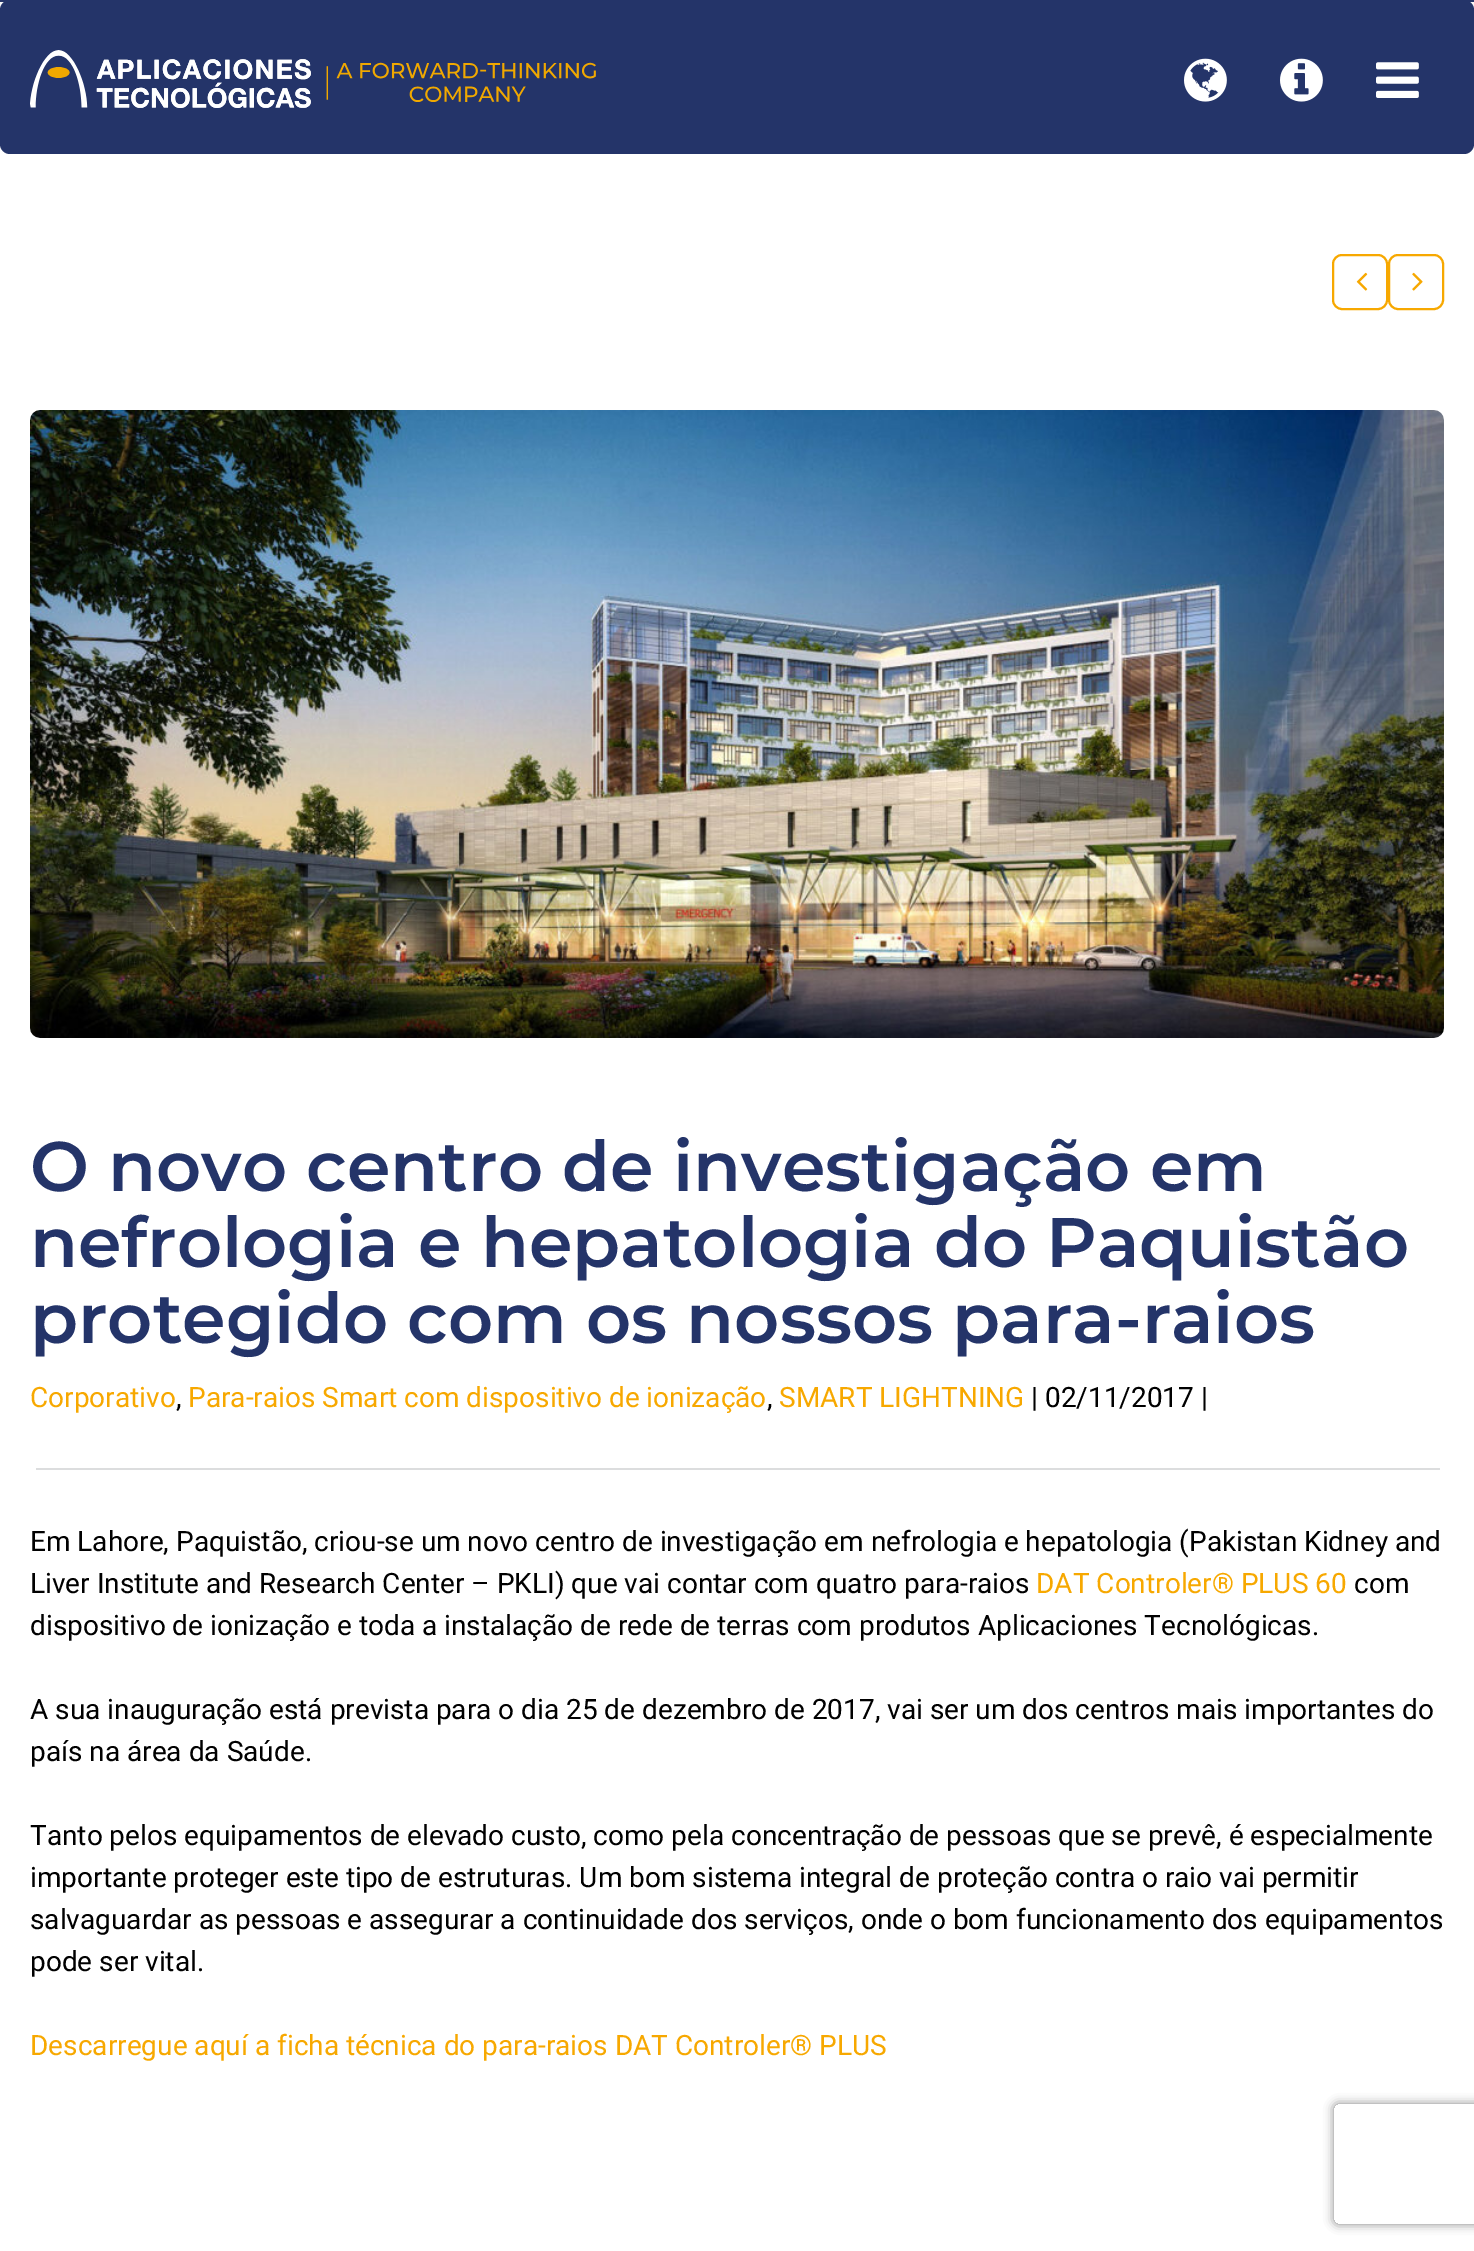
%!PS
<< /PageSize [1474 2251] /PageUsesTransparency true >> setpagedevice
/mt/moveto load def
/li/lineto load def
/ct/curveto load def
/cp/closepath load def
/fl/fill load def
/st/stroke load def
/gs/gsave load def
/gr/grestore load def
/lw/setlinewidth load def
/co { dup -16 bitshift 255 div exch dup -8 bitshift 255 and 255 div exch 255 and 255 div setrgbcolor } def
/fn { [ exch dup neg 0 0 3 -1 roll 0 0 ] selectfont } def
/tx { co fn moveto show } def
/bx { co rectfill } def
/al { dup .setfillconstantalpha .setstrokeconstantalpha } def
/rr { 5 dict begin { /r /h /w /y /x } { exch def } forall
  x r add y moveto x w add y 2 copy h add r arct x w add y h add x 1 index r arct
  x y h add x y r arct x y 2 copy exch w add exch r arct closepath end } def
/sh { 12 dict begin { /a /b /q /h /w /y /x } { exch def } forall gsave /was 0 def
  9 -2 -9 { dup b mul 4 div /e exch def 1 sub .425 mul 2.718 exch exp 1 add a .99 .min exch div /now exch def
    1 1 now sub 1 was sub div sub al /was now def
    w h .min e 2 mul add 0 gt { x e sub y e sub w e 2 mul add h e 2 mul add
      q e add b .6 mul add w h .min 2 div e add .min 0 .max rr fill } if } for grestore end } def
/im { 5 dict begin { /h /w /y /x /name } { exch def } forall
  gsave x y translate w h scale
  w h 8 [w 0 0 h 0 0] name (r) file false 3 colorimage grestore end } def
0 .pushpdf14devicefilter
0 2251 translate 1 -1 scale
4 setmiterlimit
0 0 1474 2251 16#F8F8F8 bx
16#FFFFFF co
0 0 1474 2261 10 rr fl
16#243469 co
0 0 1474 154 10 rr fl
0 0 1474 2 16#243469 bx
(media/1.raw) 30 50 566 58 im
(media/2.raw) 1184 58 43 44 im
(media/3.raw) 1280 58 43 44 im
(media/4.raw) 1376 62 43 36 im
16#F7A800 co
2 lw
1333 255 54 54 9 rr st
(media/5.raw) 1356 272 12 19 im
1389 255 54 54 9 rr st
(media/6.raw) 1412 272 11 19 im
(media/7.raw) 30 410 1414 628 im
36 1468 1404 2 16#DCDDDE bx
gs
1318 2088 mt 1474 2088 li 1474 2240 li 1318 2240 li cp 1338 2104 mt 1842 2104 li 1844 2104 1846 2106 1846 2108 ct 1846 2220 li 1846 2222 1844 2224 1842 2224 ct 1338 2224 li 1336 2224 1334 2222 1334 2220 ct 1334 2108 li 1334 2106 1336 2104 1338 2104 ct cp eoclip newpath
16#808080 co
1334 2104 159 120 4 5 1 sh
gr
(O novo centro de investigação em) 30 1191 /Montserrat-SemiBold 70 16#243469 tx
(nefrologia e hepatologia do Paquistão) 30 1267 /Montserrat-SemiBold 70 16#243469 tx
(protegido com os nossos para-raios) 30 1343 /Montserrat-SemiBold 70 16#243469 tx
(Corporativo) 30 1407 /Roboto-Regular 28 16#F7A800 tx
(,) 176 1407 /Roboto-Regular 28 16#000000 tx
(Para-raios Smart com dispositivo de ionização) 188 1407 /Roboto-Regular 28 16#F7A800 tx
(,) 767 1407 /Roboto-Regular 28 16#000000 tx
(SMART LIGHTNING) 779 1407 /Roboto-Regular 28 16#F7A800 tx
(| 02/11/2017 |) 1031 1407 /Roboto-Regular 28 16#000000 tx
(Em Lahore, Paquistão, criou-se um novo centro de investigação em nefrologia e hepatologia \(Pakistan Kidney and) 30 1551 /Roboto-Regular 28 16#000000 tx
(Liver Institute and Research Center – PKLI\) que vai contar com quatro para-raios) 30 1593 /Roboto-Regular 28 16#000000 tx
(DAT Controler® PLUS 60) 1036 1593 /Roboto-Regular 28 16#F7A800 tx
(com) 1354 1593 /Roboto-Regular 28 16#000000 tx
(dispositivo de ionização e toda a instalação de rede de terras com produtos Aplicaciones Tecnológicas.) 30 1635 /Roboto-Regular 28 16#000000 tx
(A sua inauguração está prevista para o dia 25 de dezembro de 2017, vai ser um dos centros mais importantes do) 30 1719 /Roboto-Regular 28 16#000000 tx
(país na área da Saúde.) 30 1761 /Roboto-Regular 28 16#000000 tx
(Tanto pelos equipamentos de elevado custo, como pela concentração de pessoas que se prevê, é especialmente) 30 1845 /Roboto-Regular 28 16#000000 tx
(importante proteger este tipo de estruturas. Um bom sistema integral de proteção contra o raio vai permitir) 30 1887 /Roboto-Regular 28 16#000000 tx
(salvaguardar as pessoas e assegurar a continuidade dos serviços, onde o bom funcionamento dos equipamentos) 30 1929 /Roboto-Regular 28 16#000000 tx
(pode ser vital.) 30 1971 /Roboto-Regular 28 16#000000 tx
(Descarregue aquí a ficha técnica do para-raios DAT Controler® PLUS) 30 2055 /Roboto-Regular 28 16#F7A800 tx
.poppdf14devicefilter showpage
